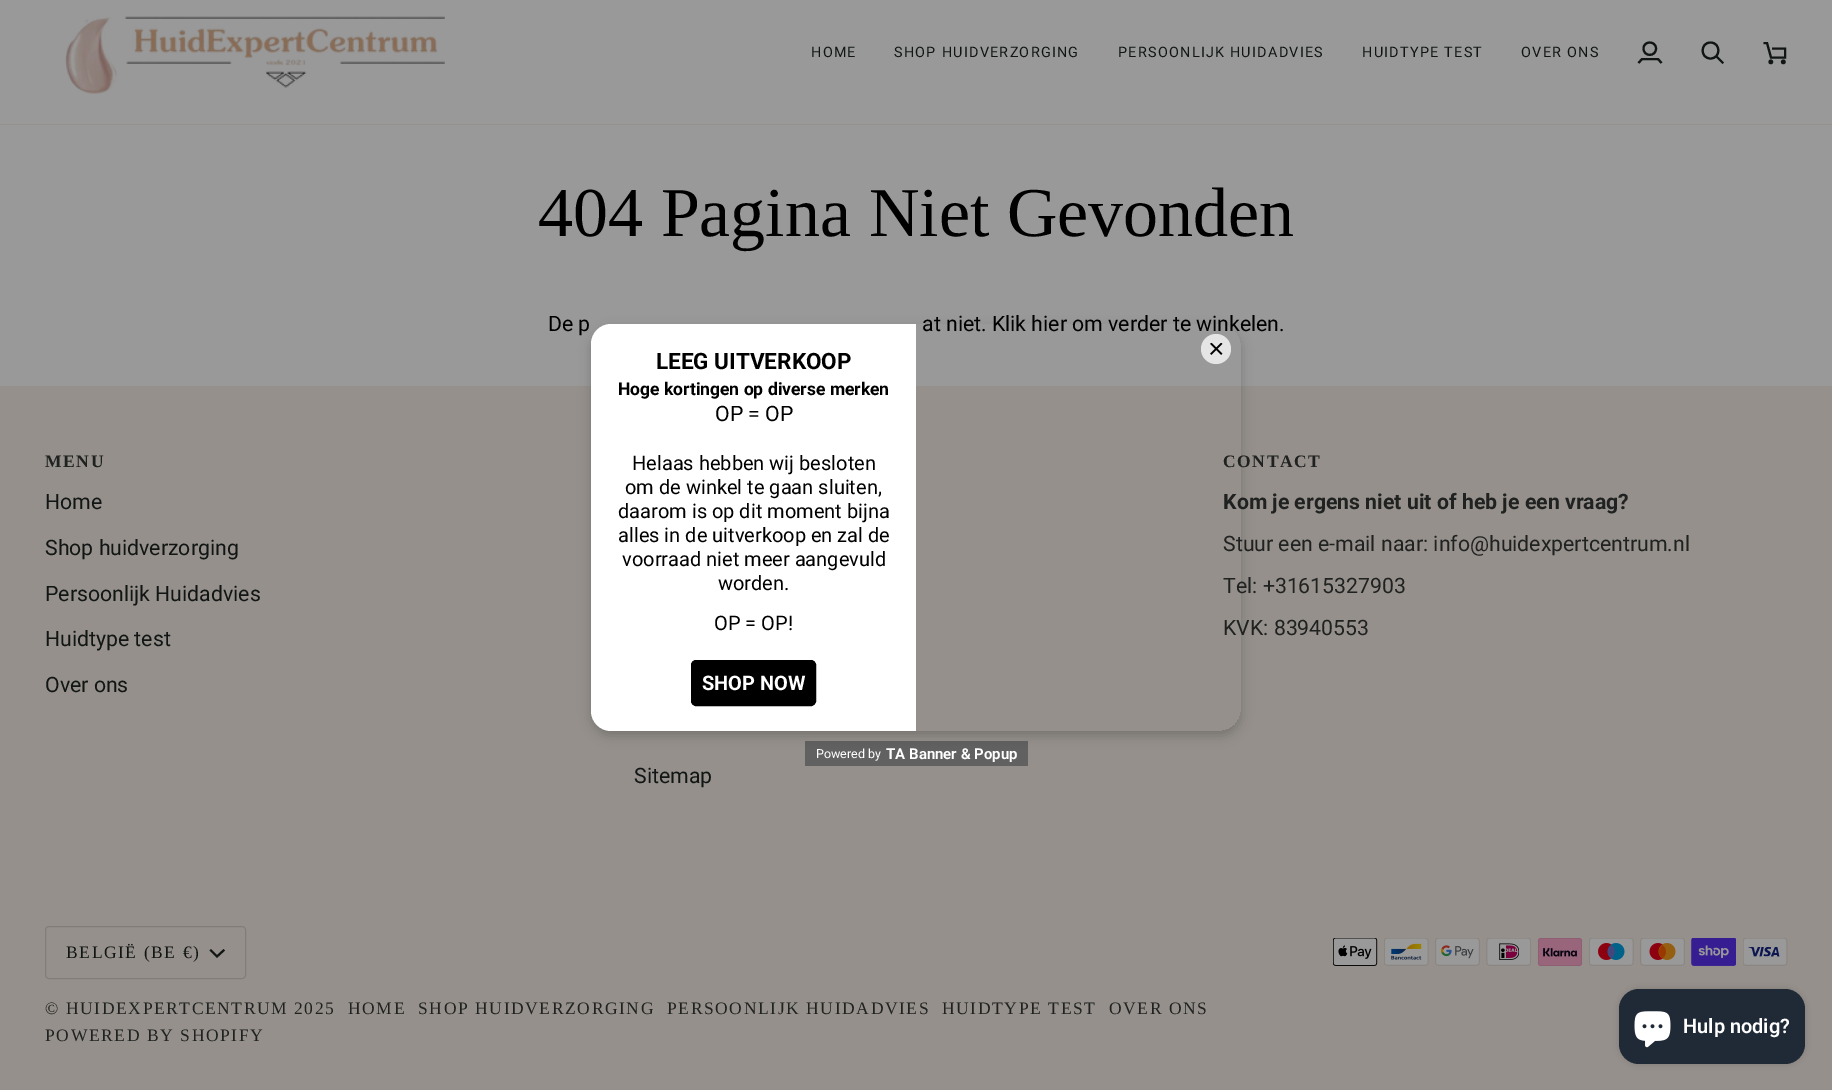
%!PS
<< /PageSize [1832 1090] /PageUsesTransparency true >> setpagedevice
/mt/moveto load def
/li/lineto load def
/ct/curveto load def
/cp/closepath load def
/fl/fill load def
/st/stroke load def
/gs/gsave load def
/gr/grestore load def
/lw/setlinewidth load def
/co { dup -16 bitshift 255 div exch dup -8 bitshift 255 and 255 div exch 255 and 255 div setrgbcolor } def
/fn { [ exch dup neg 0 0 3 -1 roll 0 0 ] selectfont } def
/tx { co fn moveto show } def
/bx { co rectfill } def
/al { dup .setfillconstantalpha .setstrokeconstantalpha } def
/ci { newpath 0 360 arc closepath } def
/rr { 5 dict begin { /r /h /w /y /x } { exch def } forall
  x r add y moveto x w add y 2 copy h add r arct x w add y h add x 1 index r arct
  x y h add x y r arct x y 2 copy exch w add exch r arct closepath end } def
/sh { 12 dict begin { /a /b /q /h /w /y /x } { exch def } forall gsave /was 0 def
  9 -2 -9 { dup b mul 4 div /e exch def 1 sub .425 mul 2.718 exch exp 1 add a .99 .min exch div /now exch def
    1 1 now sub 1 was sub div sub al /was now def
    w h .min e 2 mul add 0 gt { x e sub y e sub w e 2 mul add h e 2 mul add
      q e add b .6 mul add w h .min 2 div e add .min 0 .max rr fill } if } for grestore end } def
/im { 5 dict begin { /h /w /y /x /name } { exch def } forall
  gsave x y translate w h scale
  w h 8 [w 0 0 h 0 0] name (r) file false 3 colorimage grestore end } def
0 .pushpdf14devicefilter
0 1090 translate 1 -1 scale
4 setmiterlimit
0 0 1832 1090 16#999999 bx
0 124 1832 1 16#95908B bx
(media/1.raw) 65 16 380 78 im
16#111615 co
2.1 lw
1638.5 63 mt 1642 59 li 1658 59 li 1661.5 63 li 1656 48.5 mt 1656 57 1643.5 57 1643.5 48.5 ct 1643.5 40.5 1656 40.5 1656 48.5 ct cp st
2 setlinecap
1710.5 58.5 mt 1721 58.5 1721 42.5 1710.5 42.5 ct 1700 42.5 1700 58.5 1710.5 58.5 ct cp 1722.5 62.5 mt 1716.5 56.5 li st
0 setlinecap
1763.5 43 mt 1767 43 li 1771 57.5 li 1785 57.5 li 1785 48.5 li 1772 48.5 li st
1770.8 61.9 1.3 ci st
1783.3 61.9 1.3 ci st
0 386 1832 704 16#95908B bx
805 741 223 25 16#616161 bx
gs
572 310 mt 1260 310 li 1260 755 li 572 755 li cp 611 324 mt 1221 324 li 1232 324 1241 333 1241 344 ct 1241 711 li 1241 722 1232 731 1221 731 ct 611 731 li 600 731 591 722 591 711 ct 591 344 li 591 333 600 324 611 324 ct cp eoclip newpath
16#000000 co
591 329 650 407 20 6 .2 sh
gr
16#E5E5E5 co
1216 349 15 ci fl
(media/2.raw) 1210 343 13 12 im
16#FFFFFF co
611 324 mt 916 324 li 916 731 li 611 731 li 600 731 591 722 591 711 ct 591 344 li 591 333 600 324 611 324 ct cp fl
16#000000 co
691.5 660.5 124 45 4.5 rr gs fl gr
1 lw
st
16#817E79 co
45.5 926.5 200 52 3.5 rr st
16#111615 co
2 lw
2 setlinecap
211 950.5 mt 217 956.5 li 223.5 950.5 li st
(media/3.raw) 1333 938 45 28 im
(media/4.raw) 1384 938 45 28 im
(media/5.raw) 1435 938 45 28 im
(media/6.raw) 1486 938 45 28 im
(media/7.raw) 1538 938 44 28 im
(media/8.raw) 1589 938 45 28 im
(media/9.raw) 1640 938 45 28 im
(media/10.raw) 1691 938 45 28 im
(media/11.raw) 1743 938 45 28 im
16#000000 co
1619 989 186 75 20 3 .15 sh
16#202A36 co
1619 989 186 75 20 rr fl
(media/12.raw) 1634 1011 37 37 im
/Roboto-Regular 14.4 fn
16#111615 co
811 57 mt 1.25 0 (HOME) ashow
894 57 mt 1.25 0 (SHOP HUIDVERZORGING) ashow
1118 57 mt 1.25 0 (PERSOONLIJK HUIDADVIES) ashow
1362 57 mt 1.25 0 (HUIDTYPE TEST) ashow
1521 57 mt 1.25 0 (OVER ONS) ashow
(404 Pagina Niet Gevonden) 538 236 /LiberationSerif-Regular 70 16#000000 tx
(De p) 548 331 /Roboto-Regular 21.25 16#000000 tx
(at niet. Klik hier om verder te winkelen.) 922 331 /Roboto-Regular 21.25 16#000000 tx
(LEEG UITVERKOOP) 656 369 /Roboto-Bold 22.5 16#000000 tx
(Hoge kortingen op diverse merken) 618 395 /Roboto-Bold 17.5 16#000000 tx
(OP = OP) 715 421 /Roboto-Regular 21.25 16#000000 tx
(Helaas hebben wij besloten) 632 470 /Roboto-Regular 20 16#000000 tx
(om de winkel te gaan sluiten,) 625 494 /Roboto-Regular 20 16#000000 tx
(daarom is op dit moment bijna) 618 518 /Roboto-Regular 20 16#000000 tx
(alles in de uitverkoop en zal de) 618 542 /Roboto-Regular 20 16#000000 tx
(voorraad niet meer aangevuld) 622 566 /Roboto-Regular 20 16#000000 tx
(worden.) 718 590 /Roboto-Regular 20 16#000000 tx
(OP = OP!) 714 630 /Roboto-Regular 20 16#000000 tx
(SHOP NOW) 702 690 /Roboto-Bold 20 16#FFFFFF tx
(Powered by) 816 758 /Roboto-Regular 12.5 16#FFFFFF tx
(TA Banner & Popup) 886 759 /Roboto-SemiBold 15 16#FFFFFF tx
/LiberationSerif-Bold 17.5 fn
16#1F2221 co
45 467 mt 1.6 0 (MENU) ashow
(Home) 45 509 /Roboto-Regular 21.25 16#111615 tx
(Shop huidverzorging) 45 555 /Roboto-Regular 21.25 16#111615 tx
(Persoonlijk Huidadvies) 45 601 /Roboto-Regular 21.25 16#111615 tx
(Huidtype test) 45 646 /Roboto-Regular 21.25 16#111615 tx
(Over ons) 45 692 /Roboto-Regular 21.25 16#111615 tx
/LiberationSerif-Bold 17.5 fn
16#1F2221 co
1223 467 mt 1.6 0 (CONTACT) ashow
(Kom je ergens niet uit of heb je een vraag?) 1223 509 /Roboto-Bold 21.25 16#1F2221 tx
(Stuur een e-mail naar: info@huidexpertcentrum.nl) 1223 551 /Roboto-Regular 21.25 16#1F2221 tx
(Tel: +31615327903) 1223 593 /Roboto-Regular 21.25 16#1F2221 tx
(KVK: 83940553) 1223 635 /Roboto-Regular 21.25 16#1F2221 tx
(Sitemap) 634 783 /Roboto-Regular 21.25 16#111615 tx
/LiberationSerif-Regular 17.5 fn
66 958 mt 1.6 0 (BELGIË \(BE €\)) ashow
16#1F2221 co
45 1014 mt 1.6 0 (© HUIDEXPERTCENTRUM) ashow
294 1014 mt 1.6 0 (2025) ashow
348 1014 mt 1.6 0 (HOME) ashow
418 1014 mt 1.6 0 (SHOP HUIDVERZORGING) ashow
667 1014 mt 1.6 0 (PERSOONLIJK HUIDADVIES) ashow
942 1014 mt 1.6 0 (HUIDTYPE TEST) ashow
1109 1014 mt 1.6 0 (OVER ONS) ashow
45 1041 mt 1.6 0 (POWERED BY SHOPIFY) ashow
(Hulp nodig?) 1683 1033 /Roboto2-SemiBold 20 16#FFFFFF tx
.poppdf14devicefilter showpage
